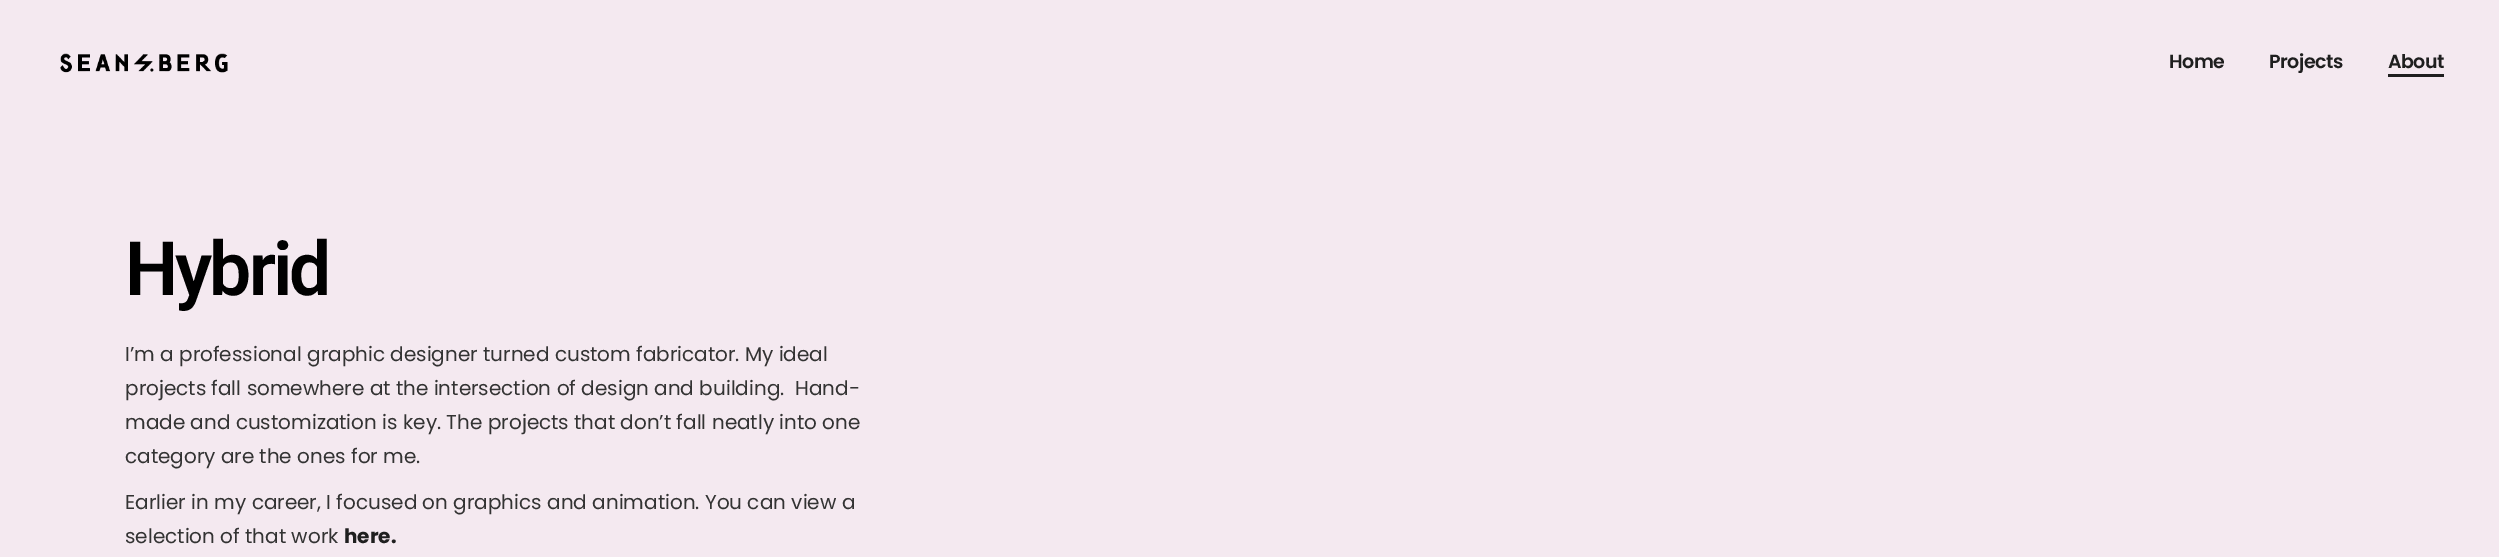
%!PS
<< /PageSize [2499 557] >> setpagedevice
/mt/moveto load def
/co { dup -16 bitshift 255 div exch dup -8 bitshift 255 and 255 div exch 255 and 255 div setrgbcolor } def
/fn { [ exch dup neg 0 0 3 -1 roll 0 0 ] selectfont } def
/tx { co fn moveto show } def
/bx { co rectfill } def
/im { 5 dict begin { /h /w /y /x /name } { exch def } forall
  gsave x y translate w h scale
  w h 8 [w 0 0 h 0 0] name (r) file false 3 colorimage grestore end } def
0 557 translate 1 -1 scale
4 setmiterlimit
0 0 2499 557 16#F4E9F0 bx
(media/1.raw) 60 53 168 20 im
2388 74 56 3 16#1F1F1F bx
/Poppins-SemiBold 19 fn
2169 68 mt -.5 0 (Home) ashow
2269 68 mt -.5 0 (Projects) ashow
2388 68 mt -.5 0 (About) ashow
/Roboto-SemiBold 75 fn
16#000000 co
125 295 mt -3 0 (Hybrid) ashow
(I’m a professional graphic designer turned custom fabricator. My ideal) 125 361 /Poppins-Regular 20 16#333333 tx
(projects fall somewhere at the intersection of design and building.  Hand-) 125 395 /Poppins-Regular 20 16#333333 tx
(made and customization is key. The projects that don’t fall neatly into one) 125 429 /Poppins-Regular 20 16#333333 tx
(category are the ones for me.) 125 463 /Poppins-Regular 20 16#333333 tx
(Earlier in my career, I focused on graphics and animation. You can view a) 125 509 /Poppins-Regular 20 16#333333 tx
(selection of that work) 125 543 /Poppins-Regular 20 16#333333 tx
(here.) 344 543 /Poppins-Bold 20 16#1F1F1F tx
showpage
